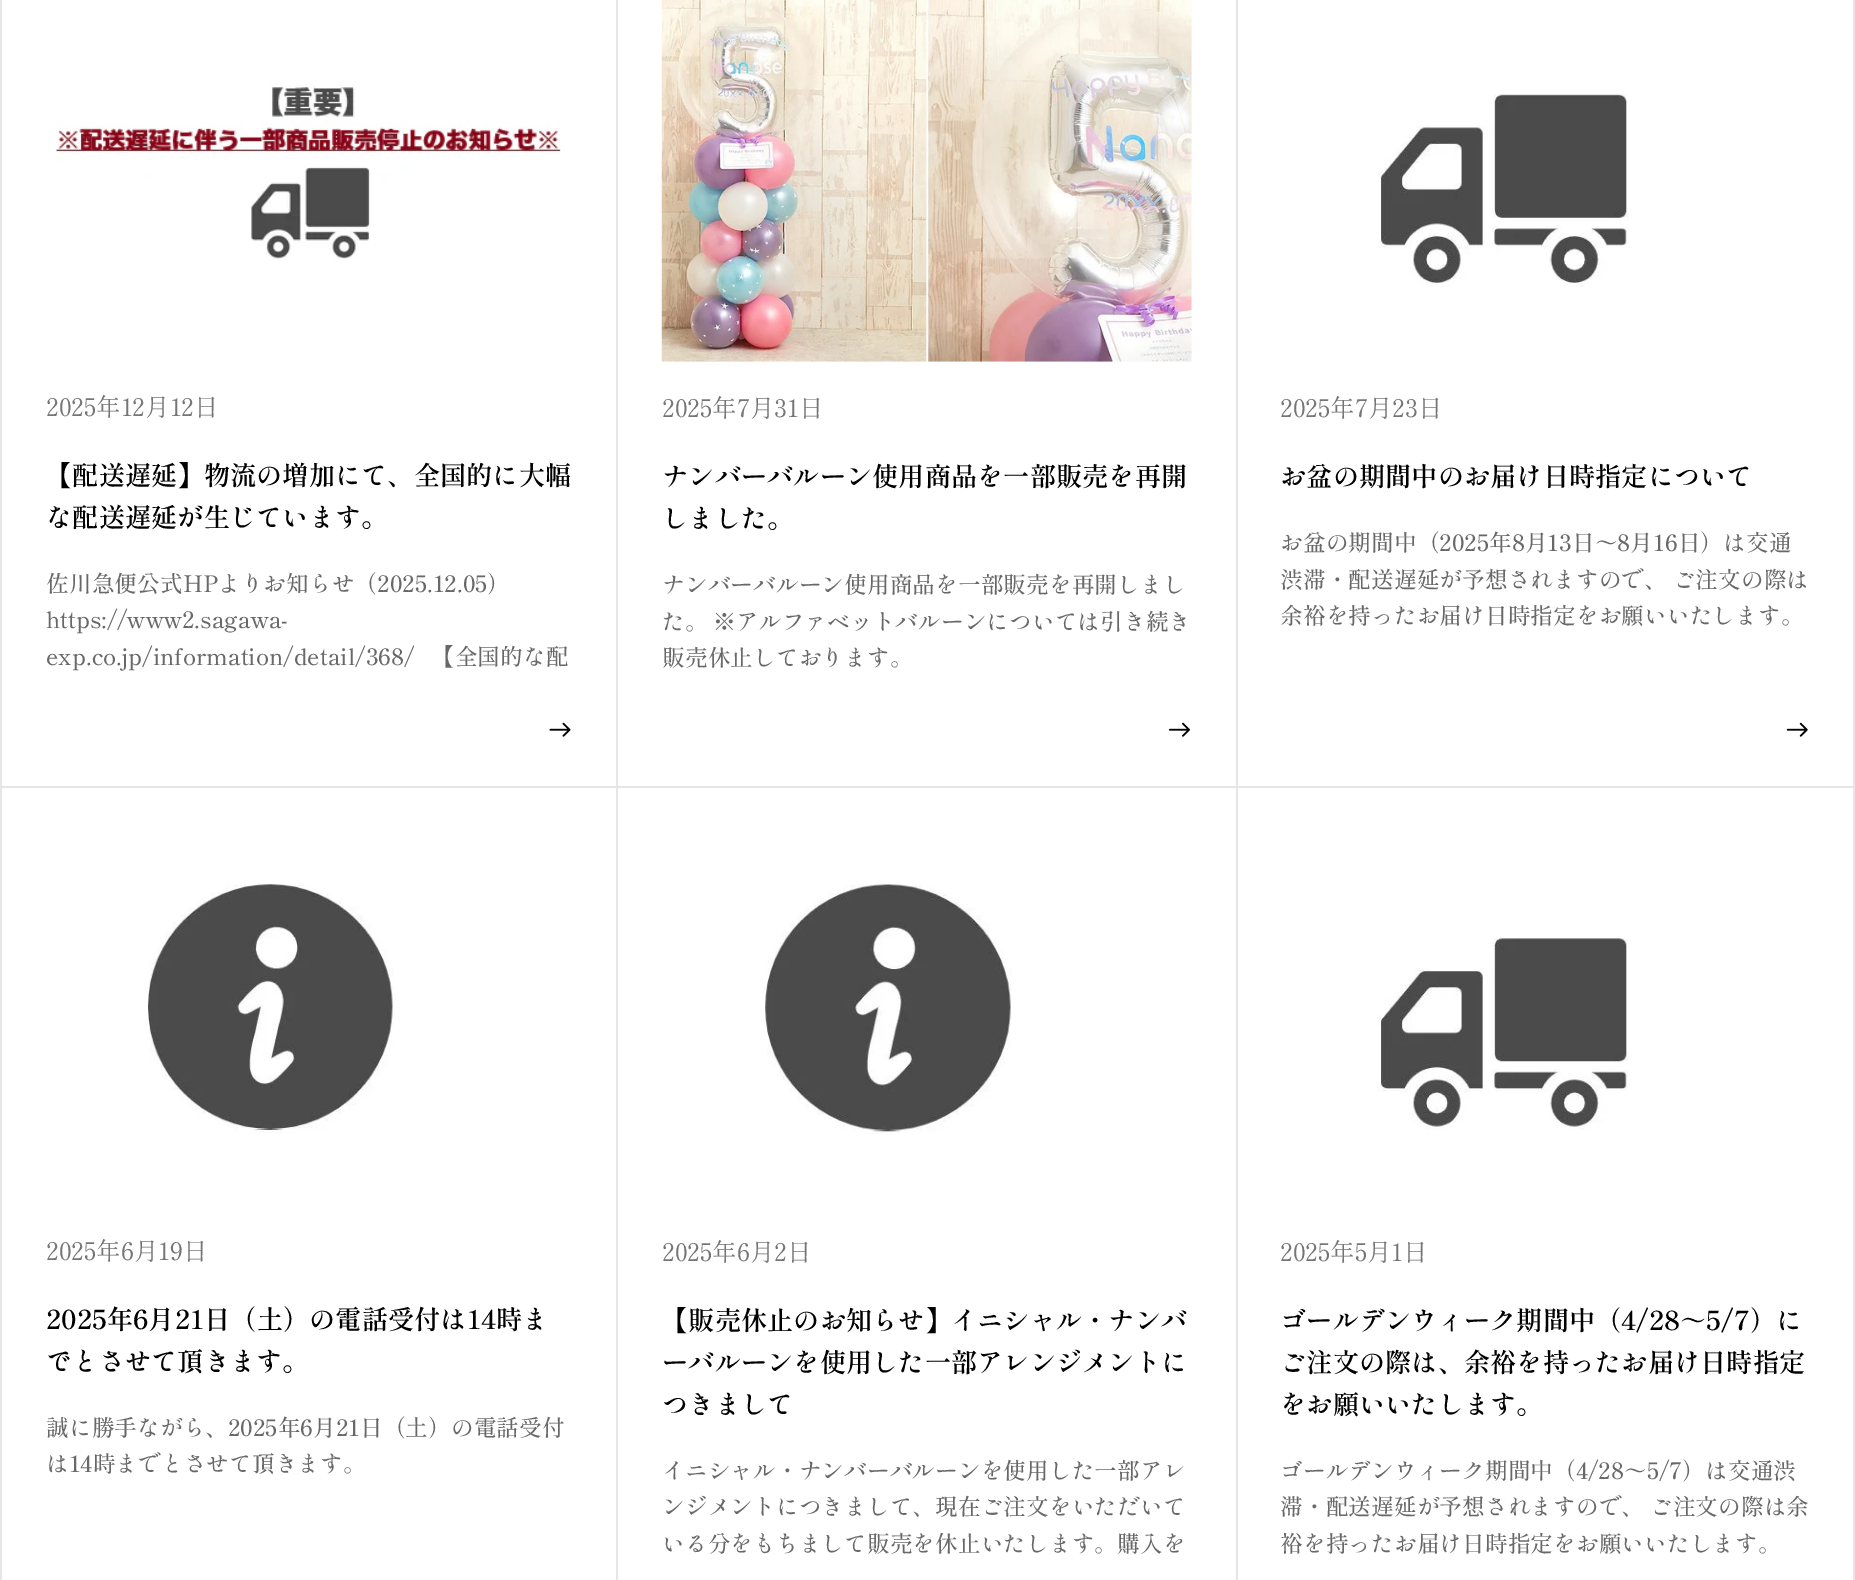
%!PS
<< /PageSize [1855 1580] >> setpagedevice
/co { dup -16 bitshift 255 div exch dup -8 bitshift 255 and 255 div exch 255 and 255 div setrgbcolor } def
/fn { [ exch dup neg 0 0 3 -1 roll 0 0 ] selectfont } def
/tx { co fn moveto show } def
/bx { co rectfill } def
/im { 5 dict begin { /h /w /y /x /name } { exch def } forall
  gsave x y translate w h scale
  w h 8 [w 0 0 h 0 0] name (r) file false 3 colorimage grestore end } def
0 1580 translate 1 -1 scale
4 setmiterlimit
0 0 1855 1580 16#FFFFFF bx
616 0 2 1580 16#E6E6E6 bx
0 786 618 2 16#E6E6E6 bx
0 0 2 1580 16#E6E6E6 bx
(media/1.raw) 55 84 506 176 im
(media/2.raw) 549 722 22 15 im
1236 0 2 1580 16#E6E6E6 bx
618 786 619 2 16#E6E6E6 bx
(media/3.raw) 661 0 531 362 im
(media/4.raw) 1169 722 21 15 im
1853 0 2 1580 16#E6E6E6 bx
1237 786 618 2 16#E6E6E6 bx
(media/5.raw) 1378 94 251 193 im
(media/6.raw) 1786 722 22 15 im
(media/7.raw) 146 884 248 249 im
(media/8.raw) 763 884 249 250 im
(media/9.raw) 1377 938 251 192 im
(2025年12月12日) 46 416 /ShipporiMincho-Regular 24.5 16#757575 tx
(【配送遅延】物流の増加にて、全国的に大幅) 46 485 /ShipporiMincho-SemiBold 26.25 16#000000 tx
(な配送遅延が生じています。) 46 527 /ShipporiMincho-SemiBold 26.25 16#000000 tx
(佐川急便公式HPよりお知らせ（2025.12.05）) 46 592 /ShipporiMincho-Medium 22.75 16#686868 tx
(https://www2.sagawa-) 46 628 /ShipporiMincho-Medium 22.75 16#686868 tx
(exp.co.jp/information/detail/368/   【全国的な配) 46 665 /ShipporiMincho-Medium 22.75 16#686868 tx
(2025年7月31日) 662 417 /ShipporiMincho-Regular 24.5 16#757575 tx
(ナンバーバルーン使用商品を一部販売を再開) 662 486 /ShipporiMincho-SemiBold 26.25 16#000000 tx
(しました。) 662 528 /ShipporiMincho-SemiBold 26.25 16#000000 tx
(ナンバーバルーン使用商品を一部販売を再開しまし) 662 593 /ShipporiMincho-Medium 22.75 16#686868 tx
(た。 ※アルファベットバルーンについては引き続き) 662 630 /ShipporiMincho-Medium 22.75 16#686868 tx
(販売休止しております。) 662 666 /ShipporiMincho-Medium 22.75 16#686868 tx
(2025年7月23日) 1280 417 /ShipporiMincho-Regular 24.5 16#757575 tx
(お盆の期間中のお届け日時指定について) 1280 486 /ShipporiMincho-SemiBold 26.25 16#000000 tx
(お盆の期間中（2025年8月13日～8月16日）は交通) 1280 551 /ShipporiMincho-Medium 22.75 16#686868 tx
(渋滞・配送遅延が予想されますので、 ご注文の際は) 1280 588 /ShipporiMincho-Medium 22.75 16#686868 tx
(余裕を持ったお届け日時指定をお願いいたします。) 1280 624 /ShipporiMincho-Medium 22.75 16#686868 tx
(2025年6月19日) 46 1260 /ShipporiMincho-Regular 24.5 16#757575 tx
(2025年6月21日（土）の電話受付は14時ま) 46 1329 /ShipporiMincho-SemiBold 26.25 16#000000 tx
(でとさせて頂きます。) 46 1371 /ShipporiMincho-SemiBold 26.25 16#000000 tx
(誠に勝手ながら、2025年6月21日（土）の電話受付) 46 1436 /ShipporiMincho-Medium 22.75 16#686868 tx
(は14時までとさせて頂きます。) 46 1472 /ShipporiMincho-Medium 22.75 16#686868 tx
(2025年6月2日) 662 1261 /ShipporiMincho-Regular 24.5 16#757575 tx
(【販売休止のお知らせ】イニシャル・ナンバ) 662 1330 /ShipporiMincho-SemiBold 26.25 16#000000 tx
(ーバルーンを使用した一部アレンジメントに) 662 1372 /ShipporiMincho-SemiBold 26.25 16#000000 tx
(つきまして) 662 1414 /ShipporiMincho-SemiBold 26.25 16#000000 tx
(イニシャル・ナンバーバルーンを使用した一部アレ) 662 1479 /ShipporiMincho-Medium 22.75 16#686868 tx
(ンジメントにつきまして、現在ご注文をいただいて) 662 1515 /ShipporiMincho-Medium 22.75 16#686868 tx
(いる分をもちまして販売を休止いたします。購入を) 662 1552 /ShipporiMincho-Medium 22.75 16#686868 tx
(2025年5月1日) 1280 1261 /ShipporiMincho-Regular 24.5 16#757575 tx
(ゴールデンウィーク期間中（4/28～5/7）に) 1280 1330 /ShipporiMincho-SemiBold 26.25 16#000000 tx
(ご注文の際は、余裕を持ったお届け日時指定) 1280 1372 /ShipporiMincho-SemiBold 26.25 16#000000 tx
(をお願いいたします。) 1280 1414 /ShipporiMincho-SemiBold 26.25 16#000000 tx
(ゴールデンウィーク期間中（4/28～5/7）は交通渋) 1280 1479 /ShipporiMincho-Medium 22.75 16#686868 tx
(滞・配送遅延が予想されますので、 ご注文の際は余) 1280 1515 /ShipporiMincho-Medium 22.75 16#686868 tx
(裕を持ったお届け日時指定をお願いいたします。) 1280 1552 /ShipporiMincho-Medium 22.75 16#686868 tx
showpage
